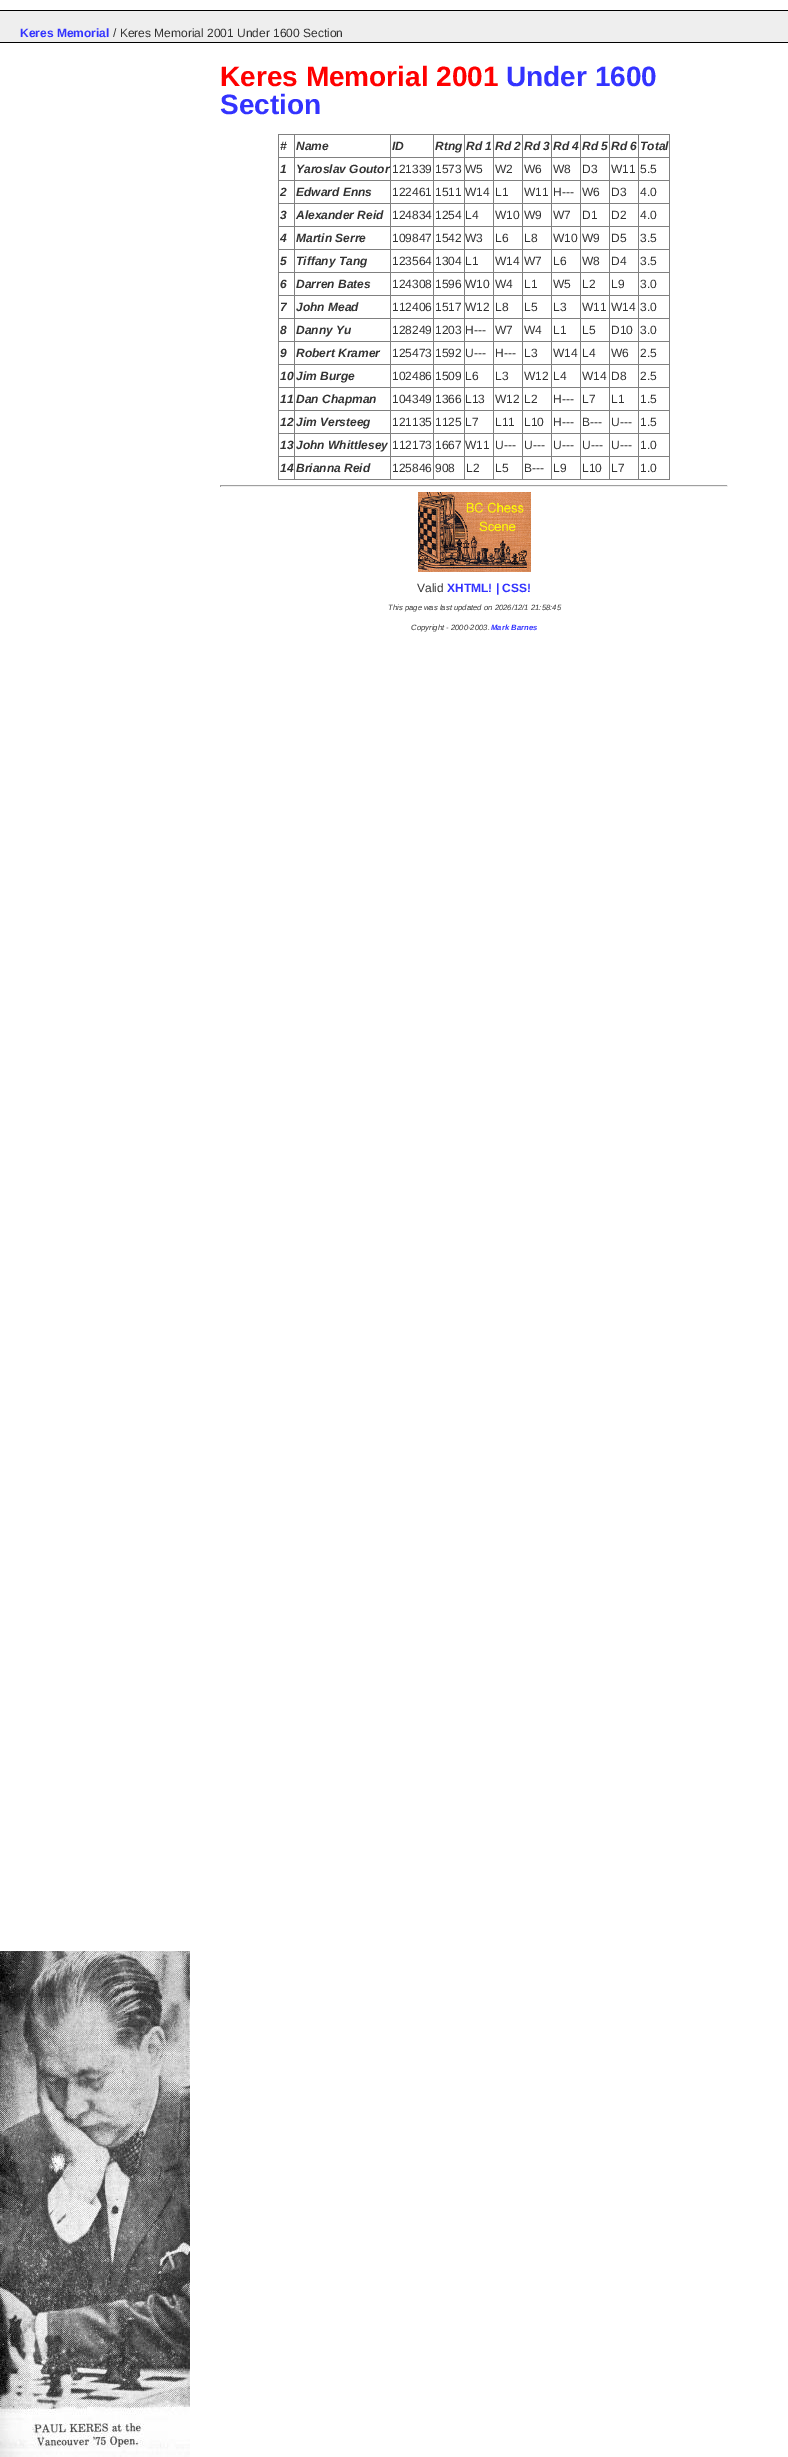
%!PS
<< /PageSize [788 2457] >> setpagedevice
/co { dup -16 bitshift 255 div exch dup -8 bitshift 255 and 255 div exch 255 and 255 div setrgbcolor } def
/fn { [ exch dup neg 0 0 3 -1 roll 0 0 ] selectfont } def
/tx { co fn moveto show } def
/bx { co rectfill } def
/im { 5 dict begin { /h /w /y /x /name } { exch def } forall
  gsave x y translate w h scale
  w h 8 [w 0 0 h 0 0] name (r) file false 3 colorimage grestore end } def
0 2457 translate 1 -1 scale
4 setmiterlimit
0 0 788 2457 16#FFFFFF bx
(media/1.raw) 0 1951 190 506 im
0 11 788 31 16#EEEEEE bx
0 10 788 1 16#000000 bx
0 42 788 1 16#000000 bx
278 134 392 1 16#808080 bx
669 134 1 346 16#808080 bx
278 479 392 1 16#808080 bx
278 134 1 346 16#808080 bx
638 157 32 1 16#808080 bx
638 180 32 1 16#808080 bx
638 203 32 1 16#808080 bx
638 226 32 1 16#808080 bx
638 249 32 1 16#808080 bx
638 272 32 1 16#808080 bx
638 295 32 1 16#808080 bx
638 318 32 1 16#808080 bx
638 341 32 1 16#808080 bx
638 364 32 1 16#808080 bx
638 387 32 1 16#808080 bx
638 410 32 1 16#808080 bx
638 433 32 1 16#808080 bx
638 456 32 1 16#808080 bx
638 456 1 24 16#808080 bx
609 456 30 1 16#808080 bx
638 433 1 24 16#808080 bx
609 433 30 1 16#808080 bx
638 410 1 24 16#808080 bx
609 410 30 1 16#808080 bx
638 387 1 24 16#808080 bx
609 387 30 1 16#808080 bx
638 364 1 24 16#808080 bx
609 364 30 1 16#808080 bx
638 341 1 24 16#808080 bx
609 341 30 1 16#808080 bx
638 318 1 24 16#808080 bx
609 318 30 1 16#808080 bx
638 295 1 24 16#808080 bx
609 295 30 1 16#808080 bx
638 272 1 24 16#808080 bx
609 272 30 1 16#808080 bx
638 249 1 24 16#808080 bx
609 249 30 1 16#808080 bx
638 226 1 24 16#808080 bx
609 226 30 1 16#808080 bx
638 203 1 24 16#808080 bx
609 203 30 1 16#808080 bx
638 180 1 24 16#808080 bx
609 180 30 1 16#808080 bx
638 157 1 24 16#808080 bx
609 157 30 1 16#808080 bx
609 456 1 24 16#808080 bx
580 456 30 1 16#808080 bx
609 433 1 24 16#808080 bx
580 433 30 1 16#808080 bx
609 410 1 24 16#808080 bx
580 410 30 1 16#808080 bx
609 387 1 24 16#808080 bx
580 387 30 1 16#808080 bx
609 364 1 24 16#808080 bx
580 364 30 1 16#808080 bx
609 341 1 24 16#808080 bx
580 341 30 1 16#808080 bx
609 318 1 24 16#808080 bx
580 318 30 1 16#808080 bx
609 295 1 24 16#808080 bx
580 295 30 1 16#808080 bx
609 272 1 24 16#808080 bx
580 272 30 1 16#808080 bx
609 249 1 24 16#808080 bx
580 249 30 1 16#808080 bx
609 226 1 24 16#808080 bx
580 226 30 1 16#808080 bx
609 203 1 24 16#808080 bx
580 203 30 1 16#808080 bx
609 180 1 24 16#808080 bx
580 180 30 1 16#808080 bx
609 157 1 24 16#808080 bx
580 157 30 1 16#808080 bx
580 456 1 24 16#808080 bx
551 456 30 1 16#808080 bx
580 433 1 24 16#808080 bx
551 433 30 1 16#808080 bx
580 410 1 24 16#808080 bx
551 410 30 1 16#808080 bx
580 387 1 24 16#808080 bx
551 387 30 1 16#808080 bx
580 364 1 24 16#808080 bx
551 364 30 1 16#808080 bx
580 341 1 24 16#808080 bx
551 341 30 1 16#808080 bx
580 318 1 24 16#808080 bx
551 318 30 1 16#808080 bx
580 295 1 24 16#808080 bx
551 295 30 1 16#808080 bx
580 272 1 24 16#808080 bx
551 272 30 1 16#808080 bx
580 249 1 24 16#808080 bx
551 249 30 1 16#808080 bx
580 226 1 24 16#808080 bx
551 226 30 1 16#808080 bx
580 203 1 24 16#808080 bx
551 203 30 1 16#808080 bx
580 180 1 24 16#808080 bx
551 180 30 1 16#808080 bx
580 157 1 24 16#808080 bx
551 157 30 1 16#808080 bx
551 456 1 24 16#808080 bx
522 456 30 1 16#808080 bx
551 433 1 24 16#808080 bx
522 433 30 1 16#808080 bx
551 410 1 24 16#808080 bx
522 410 30 1 16#808080 bx
551 387 1 24 16#808080 bx
522 387 30 1 16#808080 bx
551 364 1 24 16#808080 bx
522 364 30 1 16#808080 bx
551 341 1 24 16#808080 bx
522 341 30 1 16#808080 bx
551 318 1 24 16#808080 bx
522 318 30 1 16#808080 bx
551 295 1 24 16#808080 bx
522 295 30 1 16#808080 bx
551 272 1 24 16#808080 bx
522 272 30 1 16#808080 bx
551 249 1 24 16#808080 bx
522 249 30 1 16#808080 bx
551 226 1 24 16#808080 bx
522 226 30 1 16#808080 bx
551 203 1 24 16#808080 bx
522 203 30 1 16#808080 bx
551 180 1 24 16#808080 bx
522 180 30 1 16#808080 bx
551 157 1 24 16#808080 bx
522 157 30 1 16#808080 bx
522 456 1 24 16#808080 bx
493 456 30 1 16#808080 bx
522 433 1 24 16#808080 bx
493 433 30 1 16#808080 bx
522 410 1 24 16#808080 bx
493 410 30 1 16#808080 bx
522 387 1 24 16#808080 bx
493 387 30 1 16#808080 bx
522 364 1 24 16#808080 bx
493 364 30 1 16#808080 bx
522 341 1 24 16#808080 bx
493 341 30 1 16#808080 bx
522 318 1 24 16#808080 bx
493 318 30 1 16#808080 bx
522 295 1 24 16#808080 bx
493 295 30 1 16#808080 bx
522 272 1 24 16#808080 bx
493 272 30 1 16#808080 bx
522 249 1 24 16#808080 bx
493 249 30 1 16#808080 bx
522 226 1 24 16#808080 bx
493 226 30 1 16#808080 bx
522 203 1 24 16#808080 bx
493 203 30 1 16#808080 bx
522 180 1 24 16#808080 bx
493 180 30 1 16#808080 bx
522 157 1 24 16#808080 bx
493 157 30 1 16#808080 bx
493 456 1 24 16#808080 bx
464 456 30 1 16#808080 bx
493 433 1 24 16#808080 bx
464 433 30 1 16#808080 bx
493 410 1 24 16#808080 bx
464 410 30 1 16#808080 bx
493 387 1 24 16#808080 bx
464 387 30 1 16#808080 bx
493 364 1 24 16#808080 bx
464 364 30 1 16#808080 bx
493 341 1 24 16#808080 bx
464 341 30 1 16#808080 bx
493 318 1 24 16#808080 bx
464 318 30 1 16#808080 bx
493 295 1 24 16#808080 bx
464 295 30 1 16#808080 bx
493 272 1 24 16#808080 bx
464 272 30 1 16#808080 bx
493 249 1 24 16#808080 bx
464 249 30 1 16#808080 bx
493 226 1 24 16#808080 bx
464 226 30 1 16#808080 bx
493 203 1 24 16#808080 bx
464 203 30 1 16#808080 bx
493 180 1 24 16#808080 bx
464 180 30 1 16#808080 bx
493 157 1 24 16#808080 bx
464 157 30 1 16#808080 bx
464 456 1 24 16#808080 bx
433 456 32 1 16#808080 bx
464 433 1 24 16#808080 bx
433 433 32 1 16#808080 bx
464 410 1 24 16#808080 bx
433 410 32 1 16#808080 bx
464 387 1 24 16#808080 bx
433 387 32 1 16#808080 bx
464 364 1 24 16#808080 bx
433 364 32 1 16#808080 bx
464 341 1 24 16#808080 bx
433 341 32 1 16#808080 bx
464 318 1 24 16#808080 bx
433 318 32 1 16#808080 bx
464 295 1 24 16#808080 bx
433 295 32 1 16#808080 bx
464 272 1 24 16#808080 bx
433 272 32 1 16#808080 bx
464 249 1 24 16#808080 bx
433 249 32 1 16#808080 bx
464 226 1 24 16#808080 bx
433 226 32 1 16#808080 bx
464 203 1 24 16#808080 bx
433 203 32 1 16#808080 bx
464 180 1 24 16#808080 bx
433 180 32 1 16#808080 bx
464 157 1 24 16#808080 bx
433 157 32 1 16#808080 bx
433 456 1 24 16#808080 bx
390 456 44 1 16#808080 bx
433 433 1 24 16#808080 bx
390 433 44 1 16#808080 bx
433 410 1 24 16#808080 bx
390 410 44 1 16#808080 bx
433 387 1 24 16#808080 bx
390 387 44 1 16#808080 bx
433 364 1 24 16#808080 bx
390 364 44 1 16#808080 bx
433 341 1 24 16#808080 bx
390 341 44 1 16#808080 bx
433 318 1 24 16#808080 bx
390 318 44 1 16#808080 bx
433 295 1 24 16#808080 bx
390 295 44 1 16#808080 bx
433 272 1 24 16#808080 bx
390 272 44 1 16#808080 bx
433 249 1 24 16#808080 bx
390 249 44 1 16#808080 bx
433 226 1 24 16#808080 bx
390 226 44 1 16#808080 bx
433 203 1 24 16#808080 bx
390 203 44 1 16#808080 bx
433 180 1 24 16#808080 bx
390 180 44 1 16#808080 bx
433 157 1 24 16#808080 bx
390 157 44 1 16#808080 bx
390 456 1 24 16#808080 bx
294 456 97 1 16#808080 bx
390 433 1 24 16#808080 bx
294 433 97 1 16#808080 bx
390 410 1 24 16#808080 bx
294 410 97 1 16#808080 bx
390 387 1 24 16#808080 bx
294 387 97 1 16#808080 bx
390 364 1 24 16#808080 bx
294 364 97 1 16#808080 bx
390 341 1 24 16#808080 bx
294 341 97 1 16#808080 bx
390 318 1 24 16#808080 bx
294 318 97 1 16#808080 bx
390 295 1 24 16#808080 bx
294 295 97 1 16#808080 bx
390 272 1 24 16#808080 bx
294 272 97 1 16#808080 bx
390 249 1 24 16#808080 bx
294 249 97 1 16#808080 bx
390 226 1 24 16#808080 bx
294 226 97 1 16#808080 bx
390 203 1 24 16#808080 bx
294 203 97 1 16#808080 bx
390 180 1 24 16#808080 bx
294 180 97 1 16#808080 bx
390 157 1 24 16#808080 bx
294 157 97 1 16#808080 bx
294 456 1 24 16#808080 bx
278 456 17 1 16#808080 bx
294 433 1 24 16#808080 bx
278 433 17 1 16#808080 bx
294 410 1 24 16#808080 bx
278 410 17 1 16#808080 bx
294 387 1 24 16#808080 bx
278 387 17 1 16#808080 bx
294 364 1 24 16#808080 bx
278 364 17 1 16#808080 bx
294 341 1 24 16#808080 bx
278 341 17 1 16#808080 bx
294 318 1 24 16#808080 bx
278 318 17 1 16#808080 bx
294 295 1 24 16#808080 bx
278 295 17 1 16#808080 bx
294 272 1 24 16#808080 bx
278 272 17 1 16#808080 bx
294 249 1 24 16#808080 bx
278 249 17 1 16#808080 bx
294 226 1 24 16#808080 bx
278 226 17 1 16#808080 bx
294 203 1 24 16#808080 bx
278 203 17 1 16#808080 bx
294 180 1 24 16#808080 bx
278 180 17 1 16#808080 bx
294 157 1 24 16#808080 bx
278 157 17 1 16#808080 bx
294 134 1 24 16#808080 bx
390 134 1 24 16#808080 bx
433 134 1 24 16#808080 bx
464 134 1 24 16#808080 bx
493 134 1 24 16#808080 bx
522 134 1 24 16#808080 bx
551 134 1 24 16#808080 bx
580 134 1 24 16#808080 bx
609 134 1 24 16#808080 bx
638 134 1 24 16#808080 bx
220 485 508 1 16#9F9F9F bx
727 485 1 2 16#EEEEEE bx
220 486 508 1 16#EEEEEE bx
220 485 1 2 16#9F9F9F bx
(media/2.raw) 418 492 113 80 im
(Keres Memorial) 20 37 /LiberationSans-Bold 12 16#3333FF tx
(/ Keres Memorial 2001 Under 1600 Section) 113 37 /LiberationSans-Regular 12 16#333333 tx
(Keres Memorial 2001) 220 86 /LiberationSans-Bold 28 16#FF0000 tx
(Under 1600) 506 86 /LiberationSans-Bold 28 16#3333FF tx
(Section) 220 114 /LiberationSans-Bold 28 16#3333FF tx
(#) 280 150 /LiberationSans-BoldItalic 12 16#333333 tx
(Name) 296 150 /LiberationSans-BoldItalic 12 16#333333 tx
(ID) 392 150 /LiberationSans-BoldItalic 12 16#333333 tx
(Rtng) 435 150 /LiberationSans-BoldItalic 12 16#333333 tx
(Rd 1) 466 150 /LiberationSans-BoldItalic 12 16#333333 tx
(Rd 2) 495 150 /LiberationSans-BoldItalic 12 16#333333 tx
(Rd 3) 524 150 /LiberationSans-BoldItalic 12 16#333333 tx
(Rd 4) 553 150 /LiberationSans-BoldItalic 12 16#333333 tx
(Rd 5) 582 150 /LiberationSans-BoldItalic 12 16#333333 tx
(Rd 6) 611 150 /LiberationSans-BoldItalic 12 16#333333 tx
(Total) 640 150 /LiberationSans-BoldItalic 12 16#333333 tx
(1) 280 173 /LiberationSans-BoldItalic 12 16#333333 tx
(Yaroslav Goutor) 296 173 /LiberationSans-BoldItalic 12 16#333333 tx
(121339) 392 173 /LiberationSans-Regular 12 16#333333 tx
(1573 W5) 435 173 /LiberationSans-Regular 12 16#333333 tx
(W2) 495 173 /LiberationSans-Regular 12 16#333333 tx
(W6) 524 173 /LiberationSans-Regular 12 16#333333 tx
(W8) 553 173 /LiberationSans-Regular 12 16#333333 tx
(D3) 582 173 /LiberationSans-Regular 12 16#333333 tx
(W11) 611 173 /LiberationSans-Regular 12 16#333333 tx
(5.5) 640 173 /LiberationSans-Regular 12 16#333333 tx
(2) 280 196 /LiberationSans-BoldItalic 12 16#333333 tx
(Edward Enns) 296 196 /LiberationSans-BoldItalic 12 16#333333 tx
(122461) 392 196 /LiberationSans-Regular 12 16#333333 tx
(1511 W14) 435 196 /LiberationSans-Regular 12 16#333333 tx
(L1) 495 196 /LiberationSans-Regular 12 16#333333 tx
(W11) 524 196 /LiberationSans-Regular 12 16#333333 tx
(H---) 553 196 /LiberationSans-Regular 12 16#333333 tx
(W6) 582 196 /LiberationSans-Regular 12 16#333333 tx
(D3) 611 196 /LiberationSans-Regular 12 16#333333 tx
(4.0) 640 196 /LiberationSans-Regular 12 16#333333 tx
(3) 280 219 /LiberationSans-BoldItalic 12 16#333333 tx
(Alexander Reid) 296 219 /LiberationSans-BoldItalic 12 16#333333 tx
(124834) 392 219 /LiberationSans-Regular 12 16#333333 tx
(1254 L4) 435 219 /LiberationSans-Regular 12 16#333333 tx
(W10) 495 219 /LiberationSans-Regular 12 16#333333 tx
(W9) 524 219 /LiberationSans-Regular 12 16#333333 tx
(W7) 553 219 /LiberationSans-Regular 12 16#333333 tx
(D1) 582 219 /LiberationSans-Regular 12 16#333333 tx
(D2) 611 219 /LiberationSans-Regular 12 16#333333 tx
(4.0) 640 219 /LiberationSans-Regular 12 16#333333 tx
(4) 280 242 /LiberationSans-BoldItalic 12 16#333333 tx
(Martin Serre) 296 242 /LiberationSans-BoldItalic 12 16#333333 tx
(109847) 392 242 /LiberationSans-Regular 12 16#333333 tx
(1542 W3) 435 242 /LiberationSans-Regular 12 16#333333 tx
(L6) 495 242 /LiberationSans-Regular 12 16#333333 tx
(L8) 524 242 /LiberationSans-Regular 12 16#333333 tx
(W10) 553 242 /LiberationSans-Regular 12 16#333333 tx
(W9) 582 242 /LiberationSans-Regular 12 16#333333 tx
(D5) 611 242 /LiberationSans-Regular 12 16#333333 tx
(3.5) 640 242 /LiberationSans-Regular 12 16#333333 tx
(5) 280 265 /LiberationSans-BoldItalic 12 16#333333 tx
(Tiffany Tang) 296 265 /LiberationSans-BoldItalic 12 16#333333 tx
(123564) 392 265 /LiberationSans-Regular 12 16#333333 tx
(1304 L1) 435 265 /LiberationSans-Regular 12 16#333333 tx
(W14) 495 265 /LiberationSans-Regular 12 16#333333 tx
(W7) 524 265 /LiberationSans-Regular 12 16#333333 tx
(L6) 553 265 /LiberationSans-Regular 12 16#333333 tx
(W8) 582 265 /LiberationSans-Regular 12 16#333333 tx
(D4) 611 265 /LiberationSans-Regular 12 16#333333 tx
(3.5) 640 265 /LiberationSans-Regular 12 16#333333 tx
(6) 280 288 /LiberationSans-BoldItalic 12 16#333333 tx
(Darren Bates) 296 288 /LiberationSans-BoldItalic 12 16#333333 tx
(124308) 392 288 /LiberationSans-Regular 12 16#333333 tx
(1596 W10) 435 288 /LiberationSans-Regular 12 16#333333 tx
(W4) 495 288 /LiberationSans-Regular 12 16#333333 tx
(L1) 524 288 /LiberationSans-Regular 12 16#333333 tx
(W5) 553 288 /LiberationSans-Regular 12 16#333333 tx
(L2) 582 288 /LiberationSans-Regular 12 16#333333 tx
(L9) 611 288 /LiberationSans-Regular 12 16#333333 tx
(3.0) 640 288 /LiberationSans-Regular 12 16#333333 tx
(7) 280 311 /LiberationSans-BoldItalic 12 16#333333 tx
(John Mead) 296 311 /LiberationSans-BoldItalic 12 16#333333 tx
(112406) 392 311 /LiberationSans-Regular 12 16#333333 tx
(1517 W12) 435 311 /LiberationSans-Regular 12 16#333333 tx
(L8) 495 311 /LiberationSans-Regular 12 16#333333 tx
(L5) 524 311 /LiberationSans-Regular 12 16#333333 tx
(L3) 553 311 /LiberationSans-Regular 12 16#333333 tx
(W11) 582 311 /LiberationSans-Regular 12 16#333333 tx
(W14) 611 311 /LiberationSans-Regular 12 16#333333 tx
(3.0) 640 311 /LiberationSans-Regular 12 16#333333 tx
(8) 280 334 /LiberationSans-BoldItalic 12 16#333333 tx
(Danny Yu) 296 334 /LiberationSans-BoldItalic 12 16#333333 tx
(128249) 392 334 /LiberationSans-Regular 12 16#333333 tx
(1203 H---) 435 334 /LiberationSans-Regular 12 16#333333 tx
(W7) 495 334 /LiberationSans-Regular 12 16#333333 tx
(W4) 524 334 /LiberationSans-Regular 12 16#333333 tx
(L1) 553 334 /LiberationSans-Regular 12 16#333333 tx
(L5) 582 334 /LiberationSans-Regular 12 16#333333 tx
(D10) 611 334 /LiberationSans-Regular 12 16#333333 tx
(3.0) 640 334 /LiberationSans-Regular 12 16#333333 tx
(9) 280 357 /LiberationSans-BoldItalic 12 16#333333 tx
(Robert Kramer) 296 357 /LiberationSans-BoldItalic 12 16#333333 tx
(125473) 392 357 /LiberationSans-Regular 12 16#333333 tx
(1592 U---) 435 357 /LiberationSans-Regular 12 16#333333 tx
(H---) 495 357 /LiberationSans-Regular 12 16#333333 tx
(L3) 524 357 /LiberationSans-Regular 12 16#333333 tx
(W14) 553 357 /LiberationSans-Regular 12 16#333333 tx
(L4) 582 357 /LiberationSans-Regular 12 16#333333 tx
(W6) 611 357 /LiberationSans-Regular 12 16#333333 tx
(2.5) 640 357 /LiberationSans-Regular 12 16#333333 tx
(10) 280 380 /LiberationSans-BoldItalic 12 16#333333 tx
(Jim Burge) 296 380 /LiberationSans-BoldItalic 12 16#333333 tx
(102486) 392 380 /LiberationSans-Regular 12 16#333333 tx
(1509 L6) 435 380 /LiberationSans-Regular 12 16#333333 tx
(L3) 495 380 /LiberationSans-Regular 12 16#333333 tx
(W12) 524 380 /LiberationSans-Regular 12 16#333333 tx
(L4) 553 380 /LiberationSans-Regular 12 16#333333 tx
(W14) 582 380 /LiberationSans-Regular 12 16#333333 tx
(D8) 611 380 /LiberationSans-Regular 12 16#333333 tx
(2.5) 640 380 /LiberationSans-Regular 12 16#333333 tx
(11) 280 403 /LiberationSans-BoldItalic 12 16#333333 tx
(Dan Chapman) 296 403 /LiberationSans-BoldItalic 12 16#333333 tx
(104349) 392 403 /LiberationSans-Regular 12 16#333333 tx
(1366 L13) 435 403 /LiberationSans-Regular 12 16#333333 tx
(W12) 495 403 /LiberationSans-Regular 12 16#333333 tx
(L2) 524 403 /LiberationSans-Regular 12 16#333333 tx
(H---) 553 403 /LiberationSans-Regular 12 16#333333 tx
(L7) 582 403 /LiberationSans-Regular 12 16#333333 tx
(L1) 611 403 /LiberationSans-Regular 12 16#333333 tx
(1.5) 640 403 /LiberationSans-Regular 12 16#333333 tx
(12) 280 426 /LiberationSans-BoldItalic 12 16#333333 tx
(Jim Versteeg) 296 426 /LiberationSans-BoldItalic 12 16#333333 tx
(121135) 392 426 /LiberationSans-Regular 12 16#333333 tx
(1125 L7) 435 426 /LiberationSans-Regular 12 16#333333 tx
(L11) 495 426 /LiberationSans-Regular 12 16#333333 tx
(L10) 524 426 /LiberationSans-Regular 12 16#333333 tx
(H---) 553 426 /LiberationSans-Regular 12 16#333333 tx
(B---) 582 426 /LiberationSans-Regular 12 16#333333 tx
(U---) 611 426 /LiberationSans-Regular 12 16#333333 tx
(1.5) 640 426 /LiberationSans-Regular 12 16#333333 tx
(13) 280 449 /LiberationSans-BoldItalic 12 16#333333 tx
(John Whittlesey) 296 449 /LiberationSans-BoldItalic 12 16#333333 tx
(112173) 392 449 /LiberationSans-Regular 12 16#333333 tx
(1667 W11) 435 449 /LiberationSans-Regular 12 16#333333 tx
(U---) 495 449 /LiberationSans-Regular 12 16#333333 tx
(U---) 524 449 /LiberationSans-Regular 12 16#333333 tx
(U---) 553 449 /LiberationSans-Regular 12 16#333333 tx
(U---) 582 449 /LiberationSans-Regular 12 16#333333 tx
(U---) 611 449 /LiberationSans-Regular 12 16#333333 tx
(1.0) 640 449 /LiberationSans-Regular 12 16#333333 tx
(14) 280 472 /LiberationSans-BoldItalic 12 16#333333 tx
(Brianna Reid) 296 472 /LiberationSans-BoldItalic 12 16#333333 tx
(125846) 392 472 /LiberationSans-Regular 12 16#333333 tx
(908) 435 472 /LiberationSans-Regular 12 16#333333 tx
(L2) 466 472 /LiberationSans-Regular 12 16#333333 tx
(L5) 495 472 /LiberationSans-Regular 12 16#333333 tx
(B---) 524 472 /LiberationSans-Regular 12 16#333333 tx
(L9) 553 472 /LiberationSans-Regular 12 16#333333 tx
(L10) 582 472 /LiberationSans-Regular 12 16#333333 tx
(L7) 611 472 /LiberationSans-Regular 12 16#333333 tx
(1.0) 640 472 /LiberationSans-Regular 12 16#333333 tx
(Valid) 417 592 /LiberationSans-Regular 12 16#333333 tx
(XHTML! | CSS!) 447 592 /LiberationSans-Bold 12 16#3333FF tx
(This page was last updated on 2026/12/1 21:58:45) 388 610 /LiberationSans-Italic 7.7 16#333333 tx
(Copyright - 2000-2003.) 411 630 /LiberationSans-Italic 7.7 16#333333 tx
(Mark Barnes) 491 630 /LiberationSans-BoldItalic 7.7 16#3333FF tx
showpage
